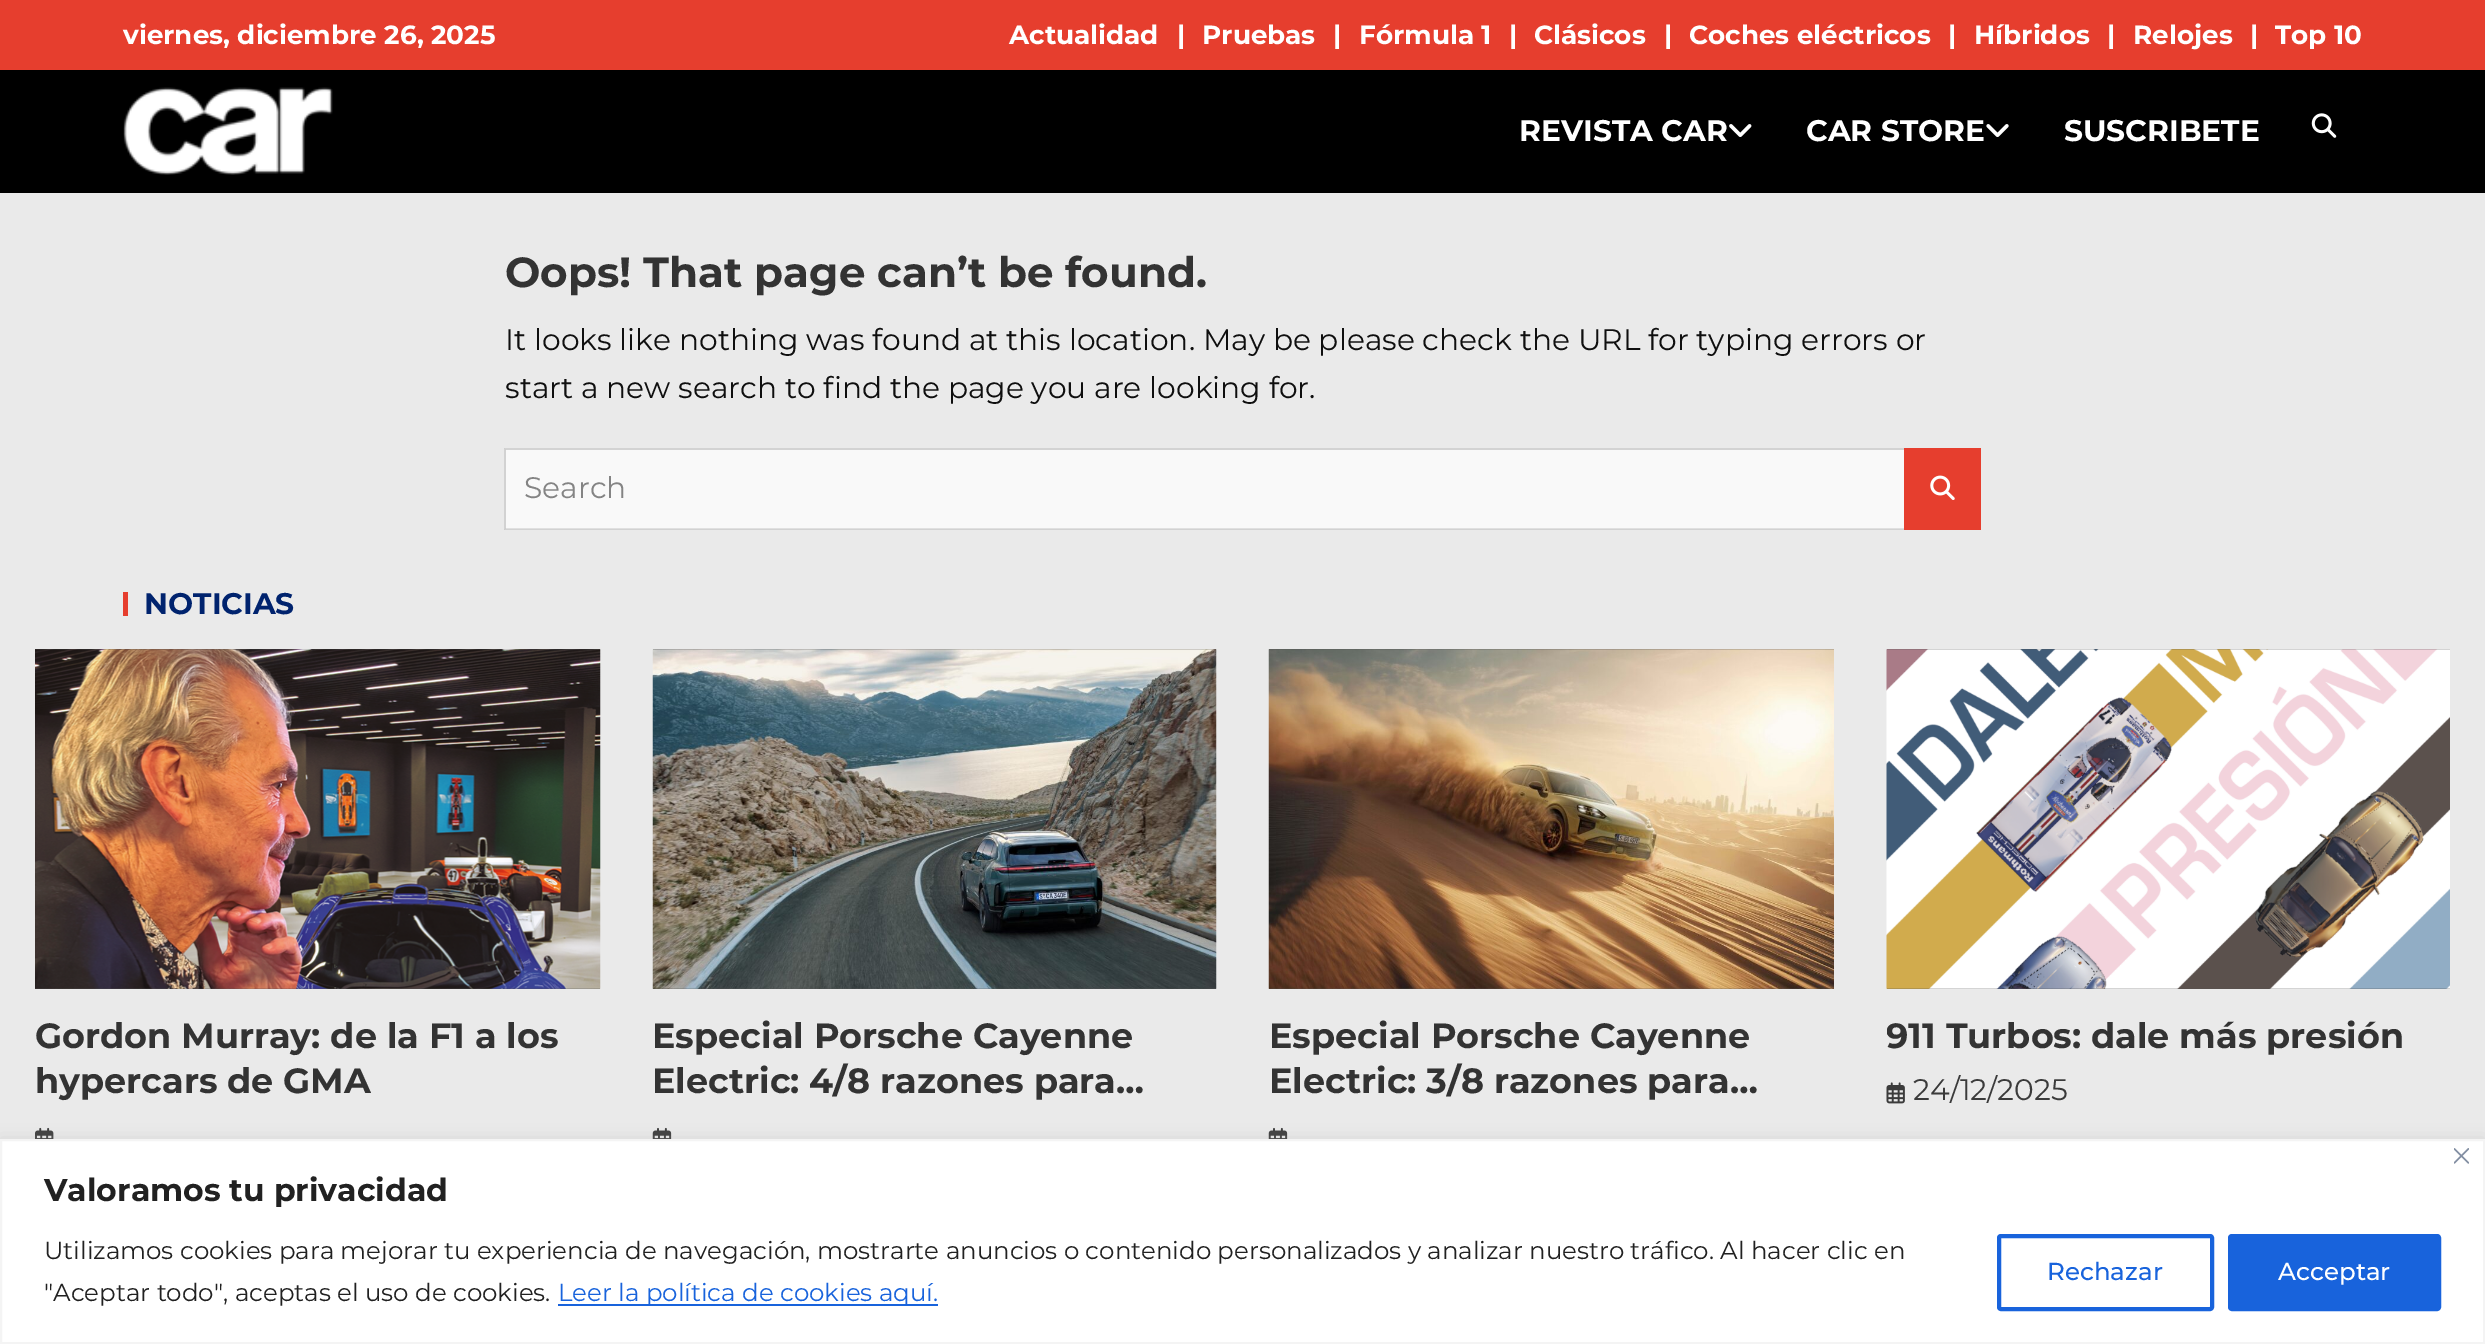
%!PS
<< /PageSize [2485 1344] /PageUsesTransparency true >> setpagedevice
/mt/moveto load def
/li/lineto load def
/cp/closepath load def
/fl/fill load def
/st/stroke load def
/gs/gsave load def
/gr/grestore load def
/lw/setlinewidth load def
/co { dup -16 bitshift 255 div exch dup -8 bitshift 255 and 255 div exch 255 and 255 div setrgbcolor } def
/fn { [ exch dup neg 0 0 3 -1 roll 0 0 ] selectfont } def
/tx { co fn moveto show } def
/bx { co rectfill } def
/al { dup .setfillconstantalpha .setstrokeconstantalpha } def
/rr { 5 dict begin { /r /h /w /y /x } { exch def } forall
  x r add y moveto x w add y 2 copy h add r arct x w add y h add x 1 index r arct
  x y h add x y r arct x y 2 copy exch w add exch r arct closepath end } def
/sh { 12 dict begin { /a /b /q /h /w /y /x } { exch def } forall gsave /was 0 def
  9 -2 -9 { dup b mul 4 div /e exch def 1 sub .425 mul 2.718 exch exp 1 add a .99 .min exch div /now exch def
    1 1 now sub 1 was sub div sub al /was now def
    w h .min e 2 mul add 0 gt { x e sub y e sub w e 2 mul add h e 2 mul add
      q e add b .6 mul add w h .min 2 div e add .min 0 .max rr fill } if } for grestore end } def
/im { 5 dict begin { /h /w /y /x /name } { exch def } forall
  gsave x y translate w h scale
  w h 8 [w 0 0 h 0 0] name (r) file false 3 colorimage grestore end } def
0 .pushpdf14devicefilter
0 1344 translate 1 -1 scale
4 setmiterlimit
0 0 2485 1344 16#EAEAEA bx
0 0 2485 70 16#E63E2E bx
0 70 2485 123 16#000000 bx
(media/1.raw) 123 87 210 88 im
(media/2.raw) 1729 124 23 13 im
(media/3.raw) 1986 124 23 13 im
(media/4.raw) 2311 113 26 25 im
506 450 1398 79 16#F9F9F9 bx
16#D3D3D3 co
504 448 mt 1904 448 li 1904 450 li 506 450 li cp fl
0.1 al
16#000000 co
1904 530 mt 504 530 li 506 528 li 1904 528 li cp fl
504 530 mt 504 448 li 506 450 li 506 528 li cp fl
1 al
1904 448 77 82 16#E63E2E bx
(media/5.raw) 1930 475 25 25 im
123 592 5 24 16#E63E2E bx
(media/6.raw) 35 649 566 340 im
(media/7.raw) 35 1127 19 12 im
(media/8.raw) 652 649 565 340 im
(media/9.raw) 652 1127 20 12 im
(media/10.raw) 1268 649 566 340 im
(media/9.raw) 1268 1127 20 12 im
(media/11.raw) 1886 649 564 340 im
(media/12.raw) 1886 1082 19 22 im
16#ACABAB co
0 1138 2485 204 0 9 .3 sh
16#FFFFFF co
1 1140 mt 2484 1140 li 2484 1343 li 1 1343 li cp gs fl gr
16#F4F4F4 co
2 lw
st
(media/13.raw) 2454 1148 15 16 im
558 1304 380 2 16#1863DC bx
4 lw
1999 1236 213 73 2 rr st
2230 1236 209 73 2 rr gs fl gr
st
(viernes, diciembre 26, 2025) 123 44 /Montserrat-Bold 26.25 16#FFFFFF tx
(Actualidad) 1009 44 /Montserrat-Bold 26.25 16#FFFFFF tx
(|) 1177 44 /Montserrat-Bold 26.25 16#FFFFFF tx
(Pruebas) 1202 44 /Montserrat-Bold 26.25 16#FFFFFF tx
(|) 1333 44 /Montserrat-Bold 26.25 16#FFFFFF tx
(Fórmula 1) 1359 44 /Montserrat-Bold 26.25 16#FFFFFF tx
(|) 1509 44 /Montserrat-Bold 26.25 16#FFFFFF tx
(Clásicos) 1534 44 /Montserrat-Bold 26.25 16#FFFFFF tx
(|) 1664 44 /Montserrat-Bold 26.25 16#FFFFFF tx
(Coches eléctricos) 1689 44 /Montserrat-Bold 26.25 16#FFFFFF tx
(|) 1948 44 /Montserrat-Bold 26.25 16#FFFFFF tx
(Híbridos) 1974 44 /Montserrat-Bold 26.25 16#FFFFFF tx
(|) 2107 44 /Montserrat-Bold 26.25 16#FFFFFF tx
(Relojes) 2133 44 /Montserrat-Bold 26.25 16#FFFFFF tx
(|) 2250 44 /Montserrat-Bold 26.25 16#FFFFFF tx
(Top 10) 2275 44 /Montserrat-Bold 26.25 16#FFFFFF tx
(REVISTA CAR) 1519 141 /Montserrat-Bold 29.75 16#FFFFFF tx
(CAR STORE) 1806 141 /Montserrat-Bold 29.75 16#FFFFFF tx
(SUSCRIBETE) 2064 141 /Montserrat-Bold 29.75 16#FFFFFF tx
(Oops! That page can’t be found.) 505 287 /Montserrat-Bold 42 16#333333 tx
(It looks like nothing was found at this location. May be please check the URL for typing errors or) 505 350 /Montserrat-Regular 29.75 16#0F0F0F tx
(start a new search to find the page you are looking for.) 505 398 /Montserrat-Regular 29.75 16#0F0F0F tx
(Search) 524 498 /Montserrat-Regular 29.75 16#848484 tx
(NOTICIAS) 144 614 /Montserrat-Bold 29.75 16#00236E tx
(Gordon Murray: de la F1 a los) 35 1048 /Montserrat-Bold 35 16#333333 tx
(hypercars de GMA) 35 1093 /Montserrat-Bold 35 16#333333 tx
(Especial Porsche Cayenne) 652 1048 /Montserrat-Bold 35 16#333333 tx
(Electric: 4/8 razones para…) 652 1093 /Montserrat-Bold 35 16#333333 tx
(Especial Porsche Cayenne) 1269 1048 /Montserrat-Bold 35 16#333333 tx
(Electric: 3/8 razones para…) 1269 1093 /Montserrat-Bold 35 16#333333 tx
gs
1887 1013 563 46 rectclip
(911 Turbos: dale más presión) 1886 1048 /Montserrat-Bold 35 16#333333 tx
gr
(24/12/2025) 1913 1100 /Montserrat-Regular 29.75 16#3B3B3B tx
(Valoramos tu privacidad) 44 1201 /Montserrat-Bold 31.5 16#212121 tx
(Utilizamos cookies para mejorar tu experiencia de navegación, mostrarte anuncios o contenido personalizados y analizar nuestro tráfico. Al hacer clic en) 44 1259 /Montserrat-Regular 24.5 16#212121 tx
("Aceptar todo", aceptas el uso de cookies.) 44 1301 /Montserrat-Regular 24.5 16#212121 tx
(Leer la política de cookies aquí.) 558 1301 /Montserrat-Regular 24.5 16#1863DC tx
(Rechazar) 2047 1280 /Montserrat-Medium 24.5 16#1863DC tx
(Acceptar) 2278 1280 /Montserrat-Medium 24.5 16#FFFFFF tx
.poppdf14devicefilter showpage
